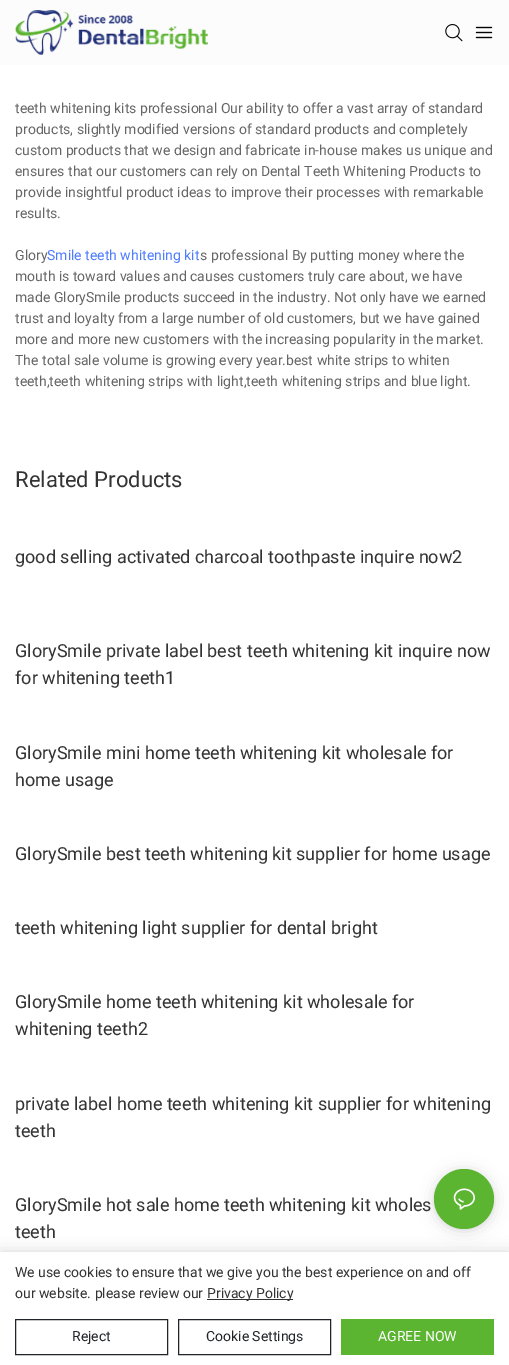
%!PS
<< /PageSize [509 1365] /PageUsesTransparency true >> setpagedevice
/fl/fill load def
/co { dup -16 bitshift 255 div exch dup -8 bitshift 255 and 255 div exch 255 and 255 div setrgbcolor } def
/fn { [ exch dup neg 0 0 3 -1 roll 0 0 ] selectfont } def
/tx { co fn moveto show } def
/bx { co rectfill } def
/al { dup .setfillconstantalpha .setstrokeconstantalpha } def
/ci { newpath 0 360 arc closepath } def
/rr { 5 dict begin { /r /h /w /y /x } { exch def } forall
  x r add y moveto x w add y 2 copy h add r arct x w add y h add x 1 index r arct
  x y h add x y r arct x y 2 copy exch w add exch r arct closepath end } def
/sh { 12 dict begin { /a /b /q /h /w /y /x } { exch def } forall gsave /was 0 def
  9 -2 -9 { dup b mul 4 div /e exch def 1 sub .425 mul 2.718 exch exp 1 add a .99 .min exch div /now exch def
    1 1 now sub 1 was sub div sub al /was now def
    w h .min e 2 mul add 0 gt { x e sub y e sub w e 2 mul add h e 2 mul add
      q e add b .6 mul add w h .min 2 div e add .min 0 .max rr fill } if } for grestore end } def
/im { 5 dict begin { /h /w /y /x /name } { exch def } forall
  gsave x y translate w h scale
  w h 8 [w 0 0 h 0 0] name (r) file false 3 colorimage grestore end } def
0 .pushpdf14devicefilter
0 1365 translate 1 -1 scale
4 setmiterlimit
0 0 509 1365 16#FFFFFF bx
0 0 509 65 16#FCFCFC bx
(media/1.raw) 15 10 193 45 im
(media/2.raw) 445 24 18 18 im
(media/3.raw) 475 26 18 13 im
16#000000 co
0 1252 509 113 0 7.5 .15 sh
0 1252 509 113 16#FFFFFF bx
16#000000 co
434 1171 60 60 30 8 .12 sh
434 1170 60 60 30 2 .06 sh
16#5BB531 co
464 1199 30 ci fl
(media/4.raw) 453 1188 22 22 im
207 1299 86 1 16#333333 bx
16#212529 co
15.5 1319.5 152 35 rectstroke
178.5 1319.5 152 35 rectstroke
341 1319 153 36 16#5BB531 bx
(teeth whitening kits professional Our ability to offer a vast array of standard) 15 113 /Roboto-Regular 14 16#666666 tx
(products, slightly modified versions of standard products and completely) 15 134 /Roboto-Regular 14 16#666666 tx
(custom products that we design and fabricate in-house makes us unique and) 15 155 /Roboto-Regular 14 16#666666 tx
(ensures that our customers can rely on Dental Teeth Whitening Products to) 15 176 /Roboto-Regular 14 16#666666 tx
(provide insightful product ideas to improve their processes with remarkable) 15 197 /Roboto-Regular 14 16#666666 tx
(results.) 15 218 /Roboto-Regular 14 16#666666 tx
(Glory) 15 260 /Roboto-Regular 14 16#666666 tx
(Smile teeth whitening kit) 47 260 /Roboto-Regular 14 16#4D7CFE tx
(s professional By putting money where the) 200 260 /Roboto-Regular 14 16#666666 tx
(mouth is toward values and causes customers truly care about, we have) 15 281 /Roboto-Regular 14 16#666666 tx
(made GlorySmile products succeed in the industry. Not only have we earned) 15 302 /Roboto-Regular 14 16#666666 tx
(trust and loyalty from a large number of old customers, but we have gained) 15 323 /Roboto-Regular 14 16#666666 tx
(more and more new customers with the increasing popularity in the market.) 15 344 /Roboto-Regular 14 16#666666 tx
(The total sale volume is growing every year.best white strips to whiten) 15 365 /Roboto-Regular 14 16#666666 tx
(teeth,teeth whitening strips with light,teeth whitening strips and blue light.) 15 386 /Roboto-Regular 14 16#666666 tx
(Related Products) 15 487 /Roboto-Regular 22 16#333333 tx
(good selling activated charcoal toothpaste inquire now2) 15 563 /Roboto-Regular 18 16#333333 tx
(GlorySmile private label best teeth whitening kit inquire now) 15 657 /Roboto-Regular 18 16#333333 tx
(for whitening teeth1) 15 684 /Roboto-Regular 18 16#333333 tx
(GlorySmile mini home teeth whitening kit wholesale for) 15 759 /Roboto-Regular 18 16#333333 tx
(home usage) 15 786 /Roboto-Regular 18 16#333333 tx
(GlorySmile best teeth whitening kit supplier for home usage) 15 860 /Roboto-Regular 18 16#333333 tx
(teeth whitening light supplier for dental bright) 15 934 /Roboto-Regular 18 16#333333 tx
(GlorySmile home teeth whitening kit wholesale for) 15 1008 /Roboto-Regular 18 16#333333 tx
(whitening teeth2) 15 1035 /Roboto-Regular 18 16#333333 tx
(private label home teeth whitening kit supplier for whitening) 15 1110 /Roboto-Regular 18 16#333333 tx
(teeth) 15 1137 /Roboto-Regular 18 16#333333 tx
(GlorySmile hot sale home teeth whitening kit wholes) 15 1211 /Roboto-Regular 18 16#333333 tx
(teeth) 15 1238 /Roboto-Regular 18 16#333333 tx
(We use cookies to ensure that we give you the best experience on and off) 15 1277 /Roboto-Regular 14 16#333333 tx
(our website. please review our) 15 1298 /Roboto-Regular 14 16#333333 tx
(Privacy Policy) 207 1298 /Roboto-Regular 14 16#333333 tx
(Reject) 72 1341 /Roboto-Regular 14 16#212529 tx
(Cookie Settings) 206 1341 /Roboto-Regular 14 16#212529 tx
(AGREE NOW) 378 1341 /Roboto-Regular 14 16#FFFFFF tx
.poppdf14devicefilter showpage
